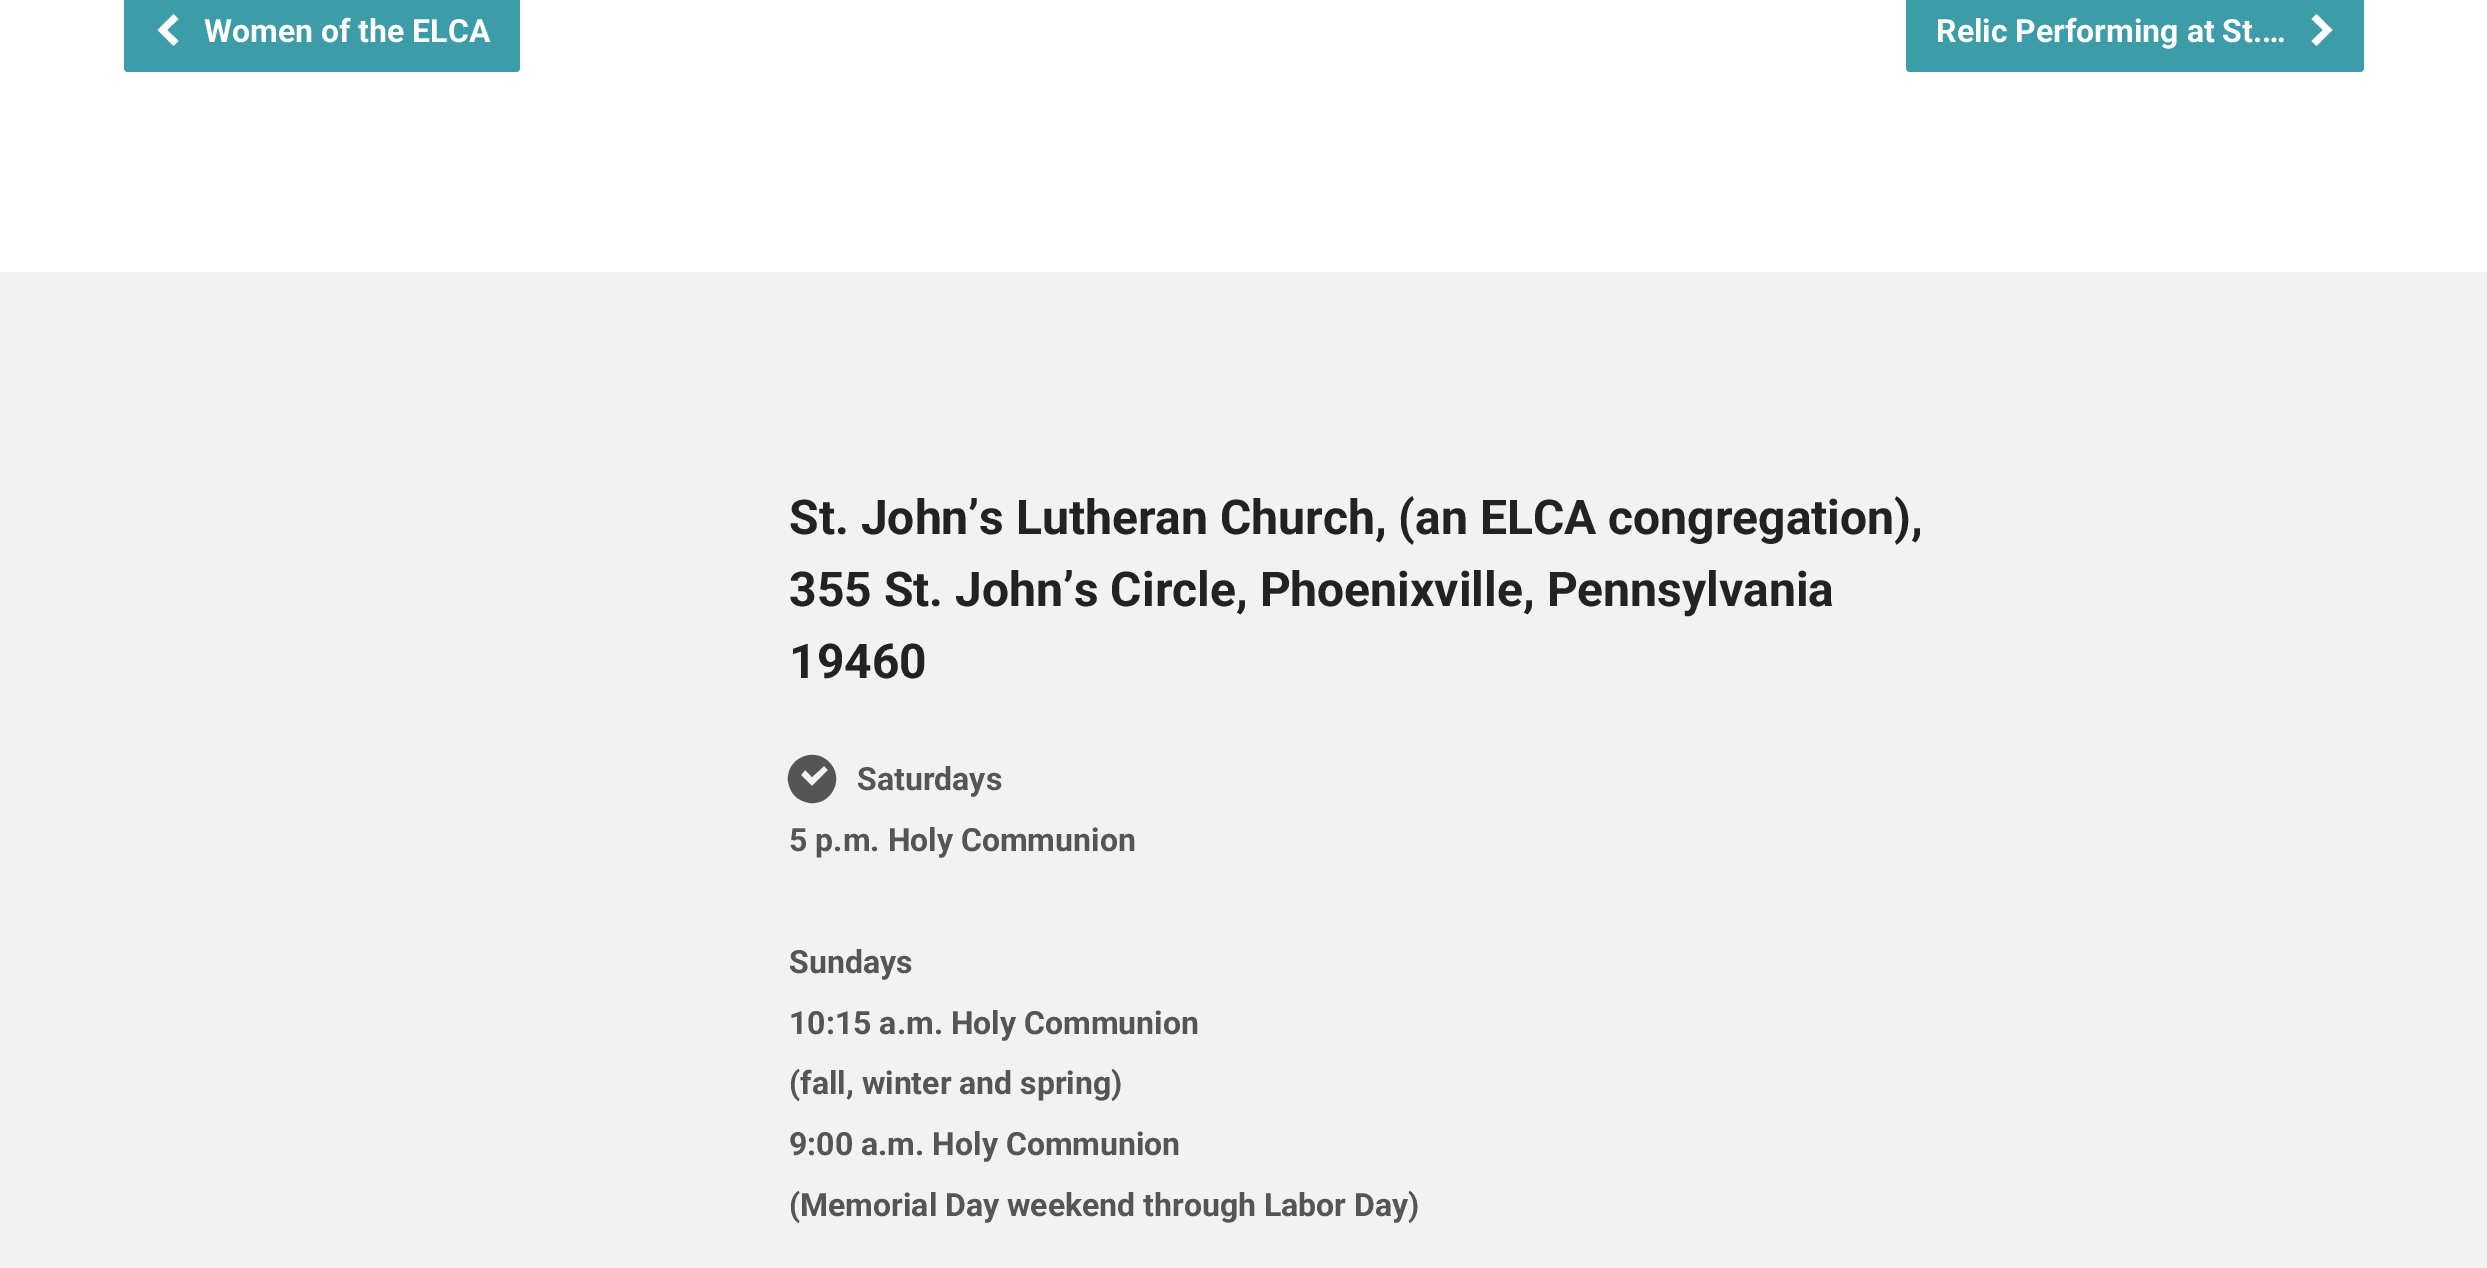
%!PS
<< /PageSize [2487 1268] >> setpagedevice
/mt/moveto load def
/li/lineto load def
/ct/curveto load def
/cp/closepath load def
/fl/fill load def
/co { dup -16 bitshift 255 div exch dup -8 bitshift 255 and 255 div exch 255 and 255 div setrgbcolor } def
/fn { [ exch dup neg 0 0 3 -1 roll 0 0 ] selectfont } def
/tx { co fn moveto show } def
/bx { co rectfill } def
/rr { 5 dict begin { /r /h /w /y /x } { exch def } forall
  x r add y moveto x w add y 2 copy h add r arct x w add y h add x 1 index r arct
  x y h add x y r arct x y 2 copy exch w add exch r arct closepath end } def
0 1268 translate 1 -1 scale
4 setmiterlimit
0 0 2487 1268 16#FFFFFF bx
16#3C9CA7 co
124 -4 396 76 4 rr fl
16#FFFFFF co
157.5 30 mt 173.5 46 li 178.5 41 li 167 30 li 178.5 19 li 173.5 14 li cp fl
16#3C9CA7 co
1906 -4 458 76 4 rr fl
16#FFFFFF co
2332.5 30 mt 2316.5 14 li 2311.5 19 li 2323 30 li 2311.5 41 li 2316.5 46 li cp fl
0 272 2487 996 16#F2F2F2 bx
16#555555 co
829 762 mt 813 746 786 759 788 781 ct 789 787 791 792 795 796 ct 799 800 804 802 810 803 ct 832 805 845 778 829 762 ct cp 824 766 mt 828 770 li 812 786 li 801 775 li 805 770 li 812 777 li cp fl
(Women of the ELCA) 204 42 /Roboto-Bold 32 16#FFFFFF tx
(Relic Performing at St.…) 1936 42 /Roboto-Bold 32 16#FFFFFF tx
(St. John’s Lutheran Church, \(an ELCA congregation\),) 789 534 /Roboto-Bold 48 16#222222 tx
(355 St. John’s Circle, Phoenixville, Pennsylvania) 789 606 /Roboto-Bold 48 16#222222 tx
(19460) 789 678 /Roboto-Bold 48 16#222222 tx
(Saturdays) 857 790 /Roboto-Bold 32 16#555555 tx
(5 p.m. Holy Communion) 789 851 /Roboto-Bold 32 16#555555 tx
(Sundays) 789 973 /Roboto-Bold 32 16#555555 tx
(10:15 a.m. Holy Communion) 789 1034 /Roboto-Bold 32 16#555555 tx
(\(fall, winter and spring\)) 789 1094 /Roboto-Bold 32 16#555555 tx
(9:00 a.m. Holy Communion) 789 1155 /Roboto-Bold 32 16#555555 tx
(\(Memorial Day weekend through Labor Day\)) 789 1216 /Roboto-Bold 32 16#555555 tx
showpage
